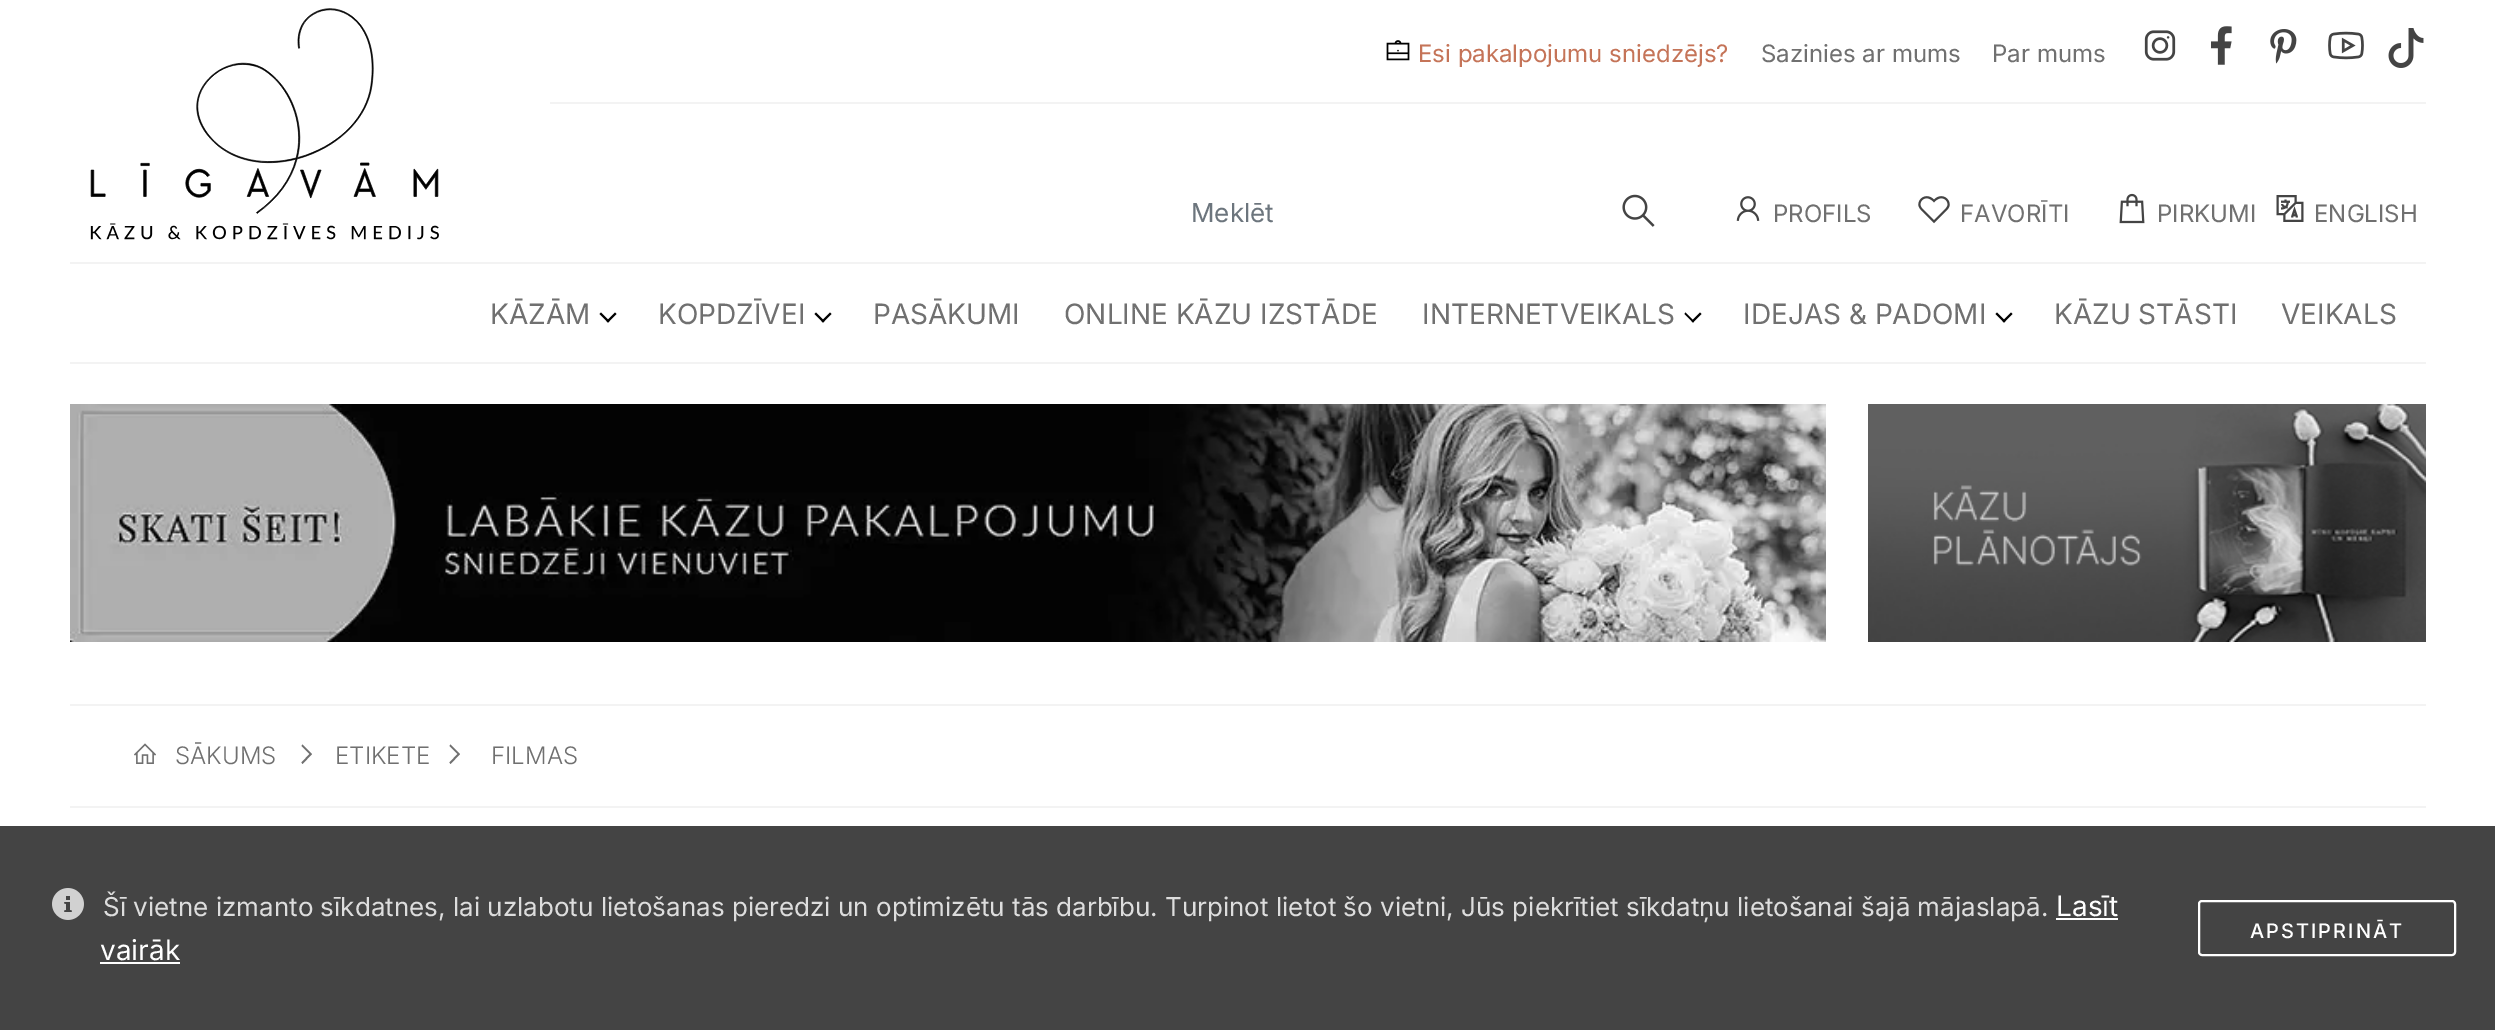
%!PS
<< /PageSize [2495 1030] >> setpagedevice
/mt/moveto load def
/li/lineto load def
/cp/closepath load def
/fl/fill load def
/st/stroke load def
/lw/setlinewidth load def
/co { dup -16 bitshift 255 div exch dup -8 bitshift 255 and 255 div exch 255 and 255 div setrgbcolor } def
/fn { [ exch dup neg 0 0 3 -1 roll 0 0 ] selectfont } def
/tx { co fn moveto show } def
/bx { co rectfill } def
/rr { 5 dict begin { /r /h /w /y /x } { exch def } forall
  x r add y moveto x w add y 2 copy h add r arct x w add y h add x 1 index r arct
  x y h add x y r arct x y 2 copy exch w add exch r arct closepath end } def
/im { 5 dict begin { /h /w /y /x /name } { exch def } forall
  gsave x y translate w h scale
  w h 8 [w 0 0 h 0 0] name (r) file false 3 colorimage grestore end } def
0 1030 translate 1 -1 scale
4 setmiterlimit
0 0 2495 1030 16#FFFFFF bx
(media/1.raw) 70 8 480 232 im
550 102 1876 2 16#F3F3F3 bx
(media/2.raw) 1386 40 24 21 im
(media/3.raw) 2144 30 32 31 im
(media/4.raw) 2211 26 21 39 im
(media/5.raw) 2270 29 27 35 im
(media/6.raw) 2328 31 36 29 im
(media/7.raw) 2388 28 36 40 im
70 262 2356 2 16#F3F3F3 bx
(media/8.raw) 1622 194 33 33 im
(media/9.raw) 1736 196 24 25 im
(media/10.raw) 1918 196 32 28 im
(media/11.raw) 2119 193 26 31 im
(media/12.raw) 2276 195 28 27 im
70 362 2356 2 16#F3F3F3 bx
16#000000 co
615 312.5 mt 616.5 314 li 608 322.5 li 606.5 321 li cp fl
601 312.5 mt 609.5 321 li 608 322.5 li 599.5 314 li cp fl
830 312.5 mt 831.5 314 li 823 322.5 li 821.5 321 li cp fl
816 312.5 mt 824.5 321 li 823 322.5 li 814.5 314 li cp fl
1700 312.5 mt 1701.5 314 li 1693 322.5 li 1691.5 321 li cp fl
1685.5 312.5 mt 1694 321 li 1693 322.5 li 1684.5 314 li cp fl
2011 312.5 mt 2012.5 314 li 2004 322.5 li 2002.5 321 li cp fl
1997 312.5 mt 2005.5 321 li 2004 322.5 li 1995.5 314 li cp fl
(media/13.raw) 70 404 1756 238 im
(media/14.raw) 1868 404 558 238 im
70 704 2356 2 16#F3F3F3 bx
70 806 2356 2 16#F3F3F3 bx
(media/15.raw) 134 743 22 21 im
16#707070 co
302.5 744.5 mt 301.5 746 li 309.5 754 li 301.5 762.5 li 302.5 764 li 312 754 li cp fl
450.5 744.5 mt 449.5 746 li 457.5 754 li 449.5 762.5 li 450.5 764 li 460 754 li cp fl
0 826 2495 204 16#444444 bx
(media/16.raw) 52 888 32 32 im
2056 918 62 2 16#FFFFFF bx
100 962 80 2 16#FFFFFF bx
2 lw
2199 901 256 54 3 rr st
(Esi pakalpojumu sniedzējs?) 1418 62 /Inter-Regular 24 16#C57458 tx
(Sazinies ar mums) 1761 62 /Inter-Regular 24 16#707070 tx
(Par mums) 1992 62 /Inter-Regular 24 16#707070 tx
(Meklēt) 1191 222 /Inter-Regular 26 16#6C757D tx
(PROFILS) 1773 222 /Inter-Regular 24 16#707070 tx
(FAVORĪTI) 1960 222 /Inter-Regular 24 16#707070 tx
(PIRKUMI) 2157 222 /Inter-Regular 24 16#707070 tx
(ENGLISH) 2314 222 /Inter-Regular 24 16#707070 tx
(KĀZĀM) 490 324 /Inter-Regular 28 16#707070 tx
(KOPDZĪVEI) 658 324 /Inter-Regular 28 16#707070 tx
(PASĀKUMI) 873 324 /Inter-Regular 28 16#707070 tx
(ONLINE KĀZU IZSTĀDE) 1064 324 /Inter-Regular 28 16#707070 tx
(INTERNETVEIKALS) 1422 324 /Inter-Regular 28 16#707070 tx
(IDEJAS & PADOMI) 1743 324 /Inter-Regular 28 16#707070 tx
(KĀZU STĀSTI) 2054 324 /Inter-Regular 28 16#707070 tx
(VEIKALS) 2281 324 /Inter-Regular 28 16#707070 tx
(SĀKUMS) 175 764 /Inter-Light 24 16#707070 tx
(ETIKETE) 335 764 /Inter-Light 24 16#707070 tx
(FILMAS) 491 764 /Inter-Light 24 16#707070 tx
(Šī vietne izmanto sīkdatnes, lai uzlabotu lietošanas pieredzi un optimizētu tās darbību. Turpinot lietot šo vietni, Jūs piekrītiet sīkdatņu lietošanai šajā mājaslapā.) 103 916 /Inter-Regular 26 16#DDDDDD tx
(Lasīt) 2056 916 /Inter-Regular 28 16#FFFFFF tx
(vairāk) 100 960 /Inter-Regular 28 16#FFFFFF tx
/Inter-Medium 20 fn
2250 938 mt 2 0 (APSTIPRINĀT) ashow
showpage
